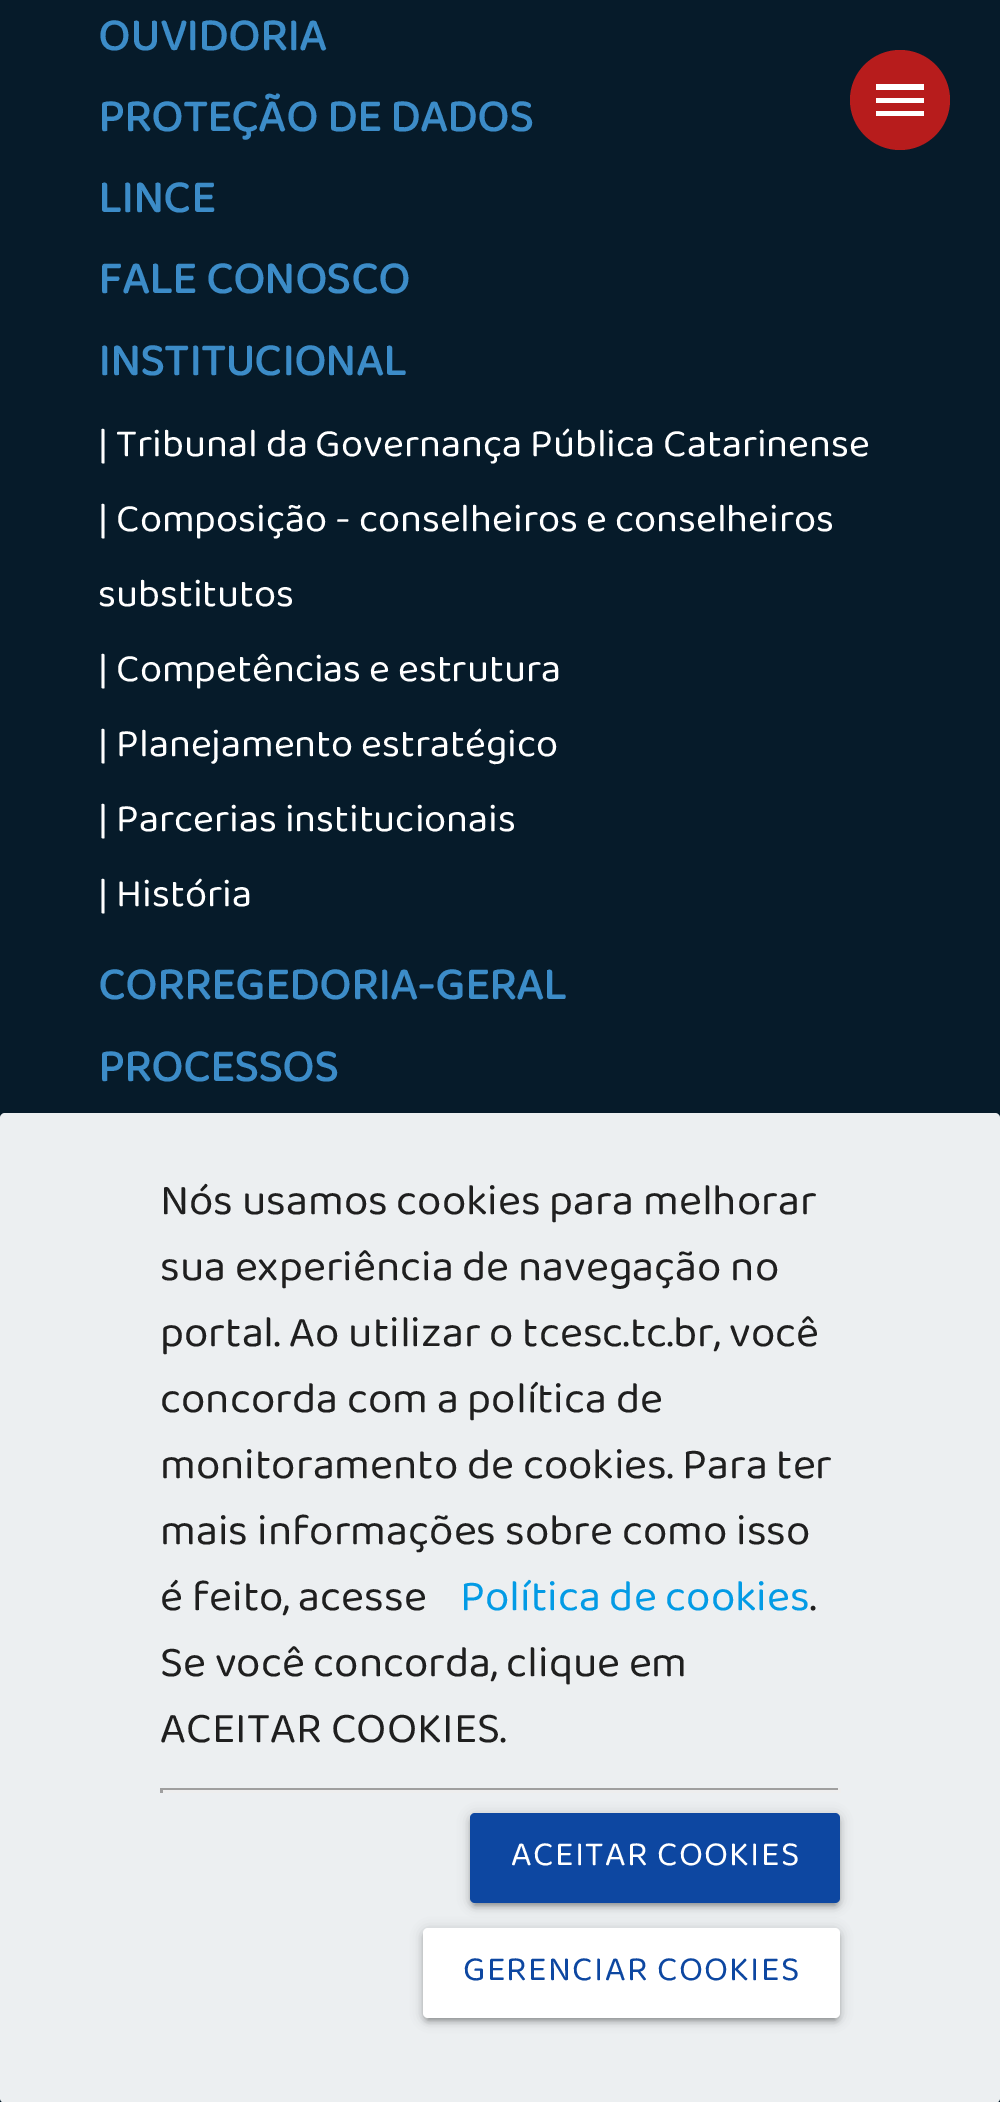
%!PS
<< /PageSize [1000 2102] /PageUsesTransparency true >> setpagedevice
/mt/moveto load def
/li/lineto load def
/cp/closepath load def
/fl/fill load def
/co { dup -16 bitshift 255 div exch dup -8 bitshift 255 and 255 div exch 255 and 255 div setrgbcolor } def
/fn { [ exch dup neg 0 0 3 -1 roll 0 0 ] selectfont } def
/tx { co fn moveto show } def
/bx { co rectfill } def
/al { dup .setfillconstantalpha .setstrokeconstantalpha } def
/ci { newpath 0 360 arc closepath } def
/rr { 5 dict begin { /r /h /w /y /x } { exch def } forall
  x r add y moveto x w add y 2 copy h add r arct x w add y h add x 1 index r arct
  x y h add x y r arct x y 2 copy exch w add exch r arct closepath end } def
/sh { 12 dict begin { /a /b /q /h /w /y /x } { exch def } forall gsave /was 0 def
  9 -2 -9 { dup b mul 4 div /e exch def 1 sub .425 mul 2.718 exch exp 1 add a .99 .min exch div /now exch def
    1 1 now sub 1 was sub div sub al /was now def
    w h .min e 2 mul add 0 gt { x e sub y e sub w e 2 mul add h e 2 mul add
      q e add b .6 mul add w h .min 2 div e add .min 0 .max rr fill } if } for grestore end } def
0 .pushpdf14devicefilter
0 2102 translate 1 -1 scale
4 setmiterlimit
0 0 1000 2102 16#061B2A bx
16#B71C1C co
900 100 50 ci fl
16#FFFFFF co
876 84 mt 924 84 li 924 90 li 876 90 li cp 876 103 mt 876 98 li 924 98 li 924 103 li cp 876 116 mt 876 111 li 924 111 li 924 116 li cp fl
16#ECEFF1 co
0 1113 1000 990 5 rr fl
160 1788 680 2 16#9F9F9F bx
838 1788 3 5 16#EEEEEE bx
160 1790 680 3 16#EEEEEE bx
160 1788 3 5 16#9F9F9F bx
16#000000 co
470 1815 370 90 5 6 .2 sh
475 1825 360 80 0 1 .12 sh
470 1818 370 90 5 2.5 .14 sh
16#0D47A1 co
470 1813 370 90 5 rr fl
16#000000 co
423 1930 417 90 5 6 .2 sh
428 1940 407 80 0 1 .12 sh
423 1933 417 90 5 2.5 .14 sh
16#FFFFFF co
423 1928 417 90 5 rr fl
(OUVIDORIA) 98 50 /BalooTamma2-Bold 46 16#3C8CC8 tx
(PROTEÇÃO DE DADOS) 98 131 /BalooTamma2-Bold 46 16#3C8CC8 tx
(LINCE) 98 212 /BalooTamma2-Bold 46 16#3C8CC8 tx
(FALE CONOSCO) 98 293 /BalooTamma2-Bold 46 16#3C8CC8 tx
(INSTITUCIONAL) 98 375 /BalooTamma2-Bold 46 16#3C8CC8 tx
(| Tribunal da Governança Pública Catarinense) 98 456 /BalooTamma2-Regular 40 16#FFFFFF tx
(| Composição - conselheiros e conselheiros) 98 531 /BalooTamma2-Regular 40 16#FFFFFF tx
(substitutos) 98 606 /BalooTamma2-Regular 40 16#FFFFFF tx
(| Competências e estrutura) 98 681 /BalooTamma2-Regular 40 16#FFFFFF tx
(| Planejamento estratégico) 98 756 /BalooTamma2-Regular 40 16#FFFFFF tx
(| Parcerias institucionais) 98 831 /BalooTamma2-Regular 40 16#FFFFFF tx
(| História) 98 906 /BalooTamma2-Regular 40 16#FFFFFF tx
(CORREGEDORIA-GERAL) 98 999 /BalooTamma2-Bold 46 16#3C8CC8 tx
(PROCESSOS) 98 1081 /BalooTamma2-Bold 46 16#3C8CC8 tx
(Nós usamos cookies para melhorar) 160 1214 /BalooTamma2-Regular 44 16#1F1F1F tx
(sua experiência de navegação no) 160 1280 /BalooTamma2-Regular 44 16#1F1F1F tx
(portal. Ao utilizar o tcesc.tc.br, você) 160 1346 /BalooTamma2-Regular 44 16#1F1F1F tx
(concorda com a política de) 160 1412 /BalooTamma2-Regular 44 16#1F1F1F tx
(monitoramento de cookies. Para ter) 160 1478 /BalooTamma2-Regular 44 16#1F1F1F tx
(mais informações sobre como isso) 160 1544 /BalooTamma2-Regular 44 16#1F1F1F tx
(é feito, acesse) 160 1610 /BalooTamma2-Regular 44 16#1F1F1F tx
(Política de cookies) 460 1610 /BalooTamma2-Regular 44 16#039BE5 tx
(.) 810 1610 /BalooTamma2-Regular 44 16#1F1F1F tx
(Se você concorda, clique em) 160 1676 /BalooTamma2-Regular 44 16#1F1F1F tx
(ACEITAR COOKIES.) 160 1742 /BalooTamma2-Regular 44 16#1F1F1F tx
/BalooTamma2-Regular 35 fn
16#FFFFFF co
511 1865 mt 1.25 0 (ACEITAR COOKIES) ashow
16#0D47A1 co
463 1980 mt 1.25 0 (GERENCIAR COOKIES) ashow
.poppdf14devicefilter showpage
